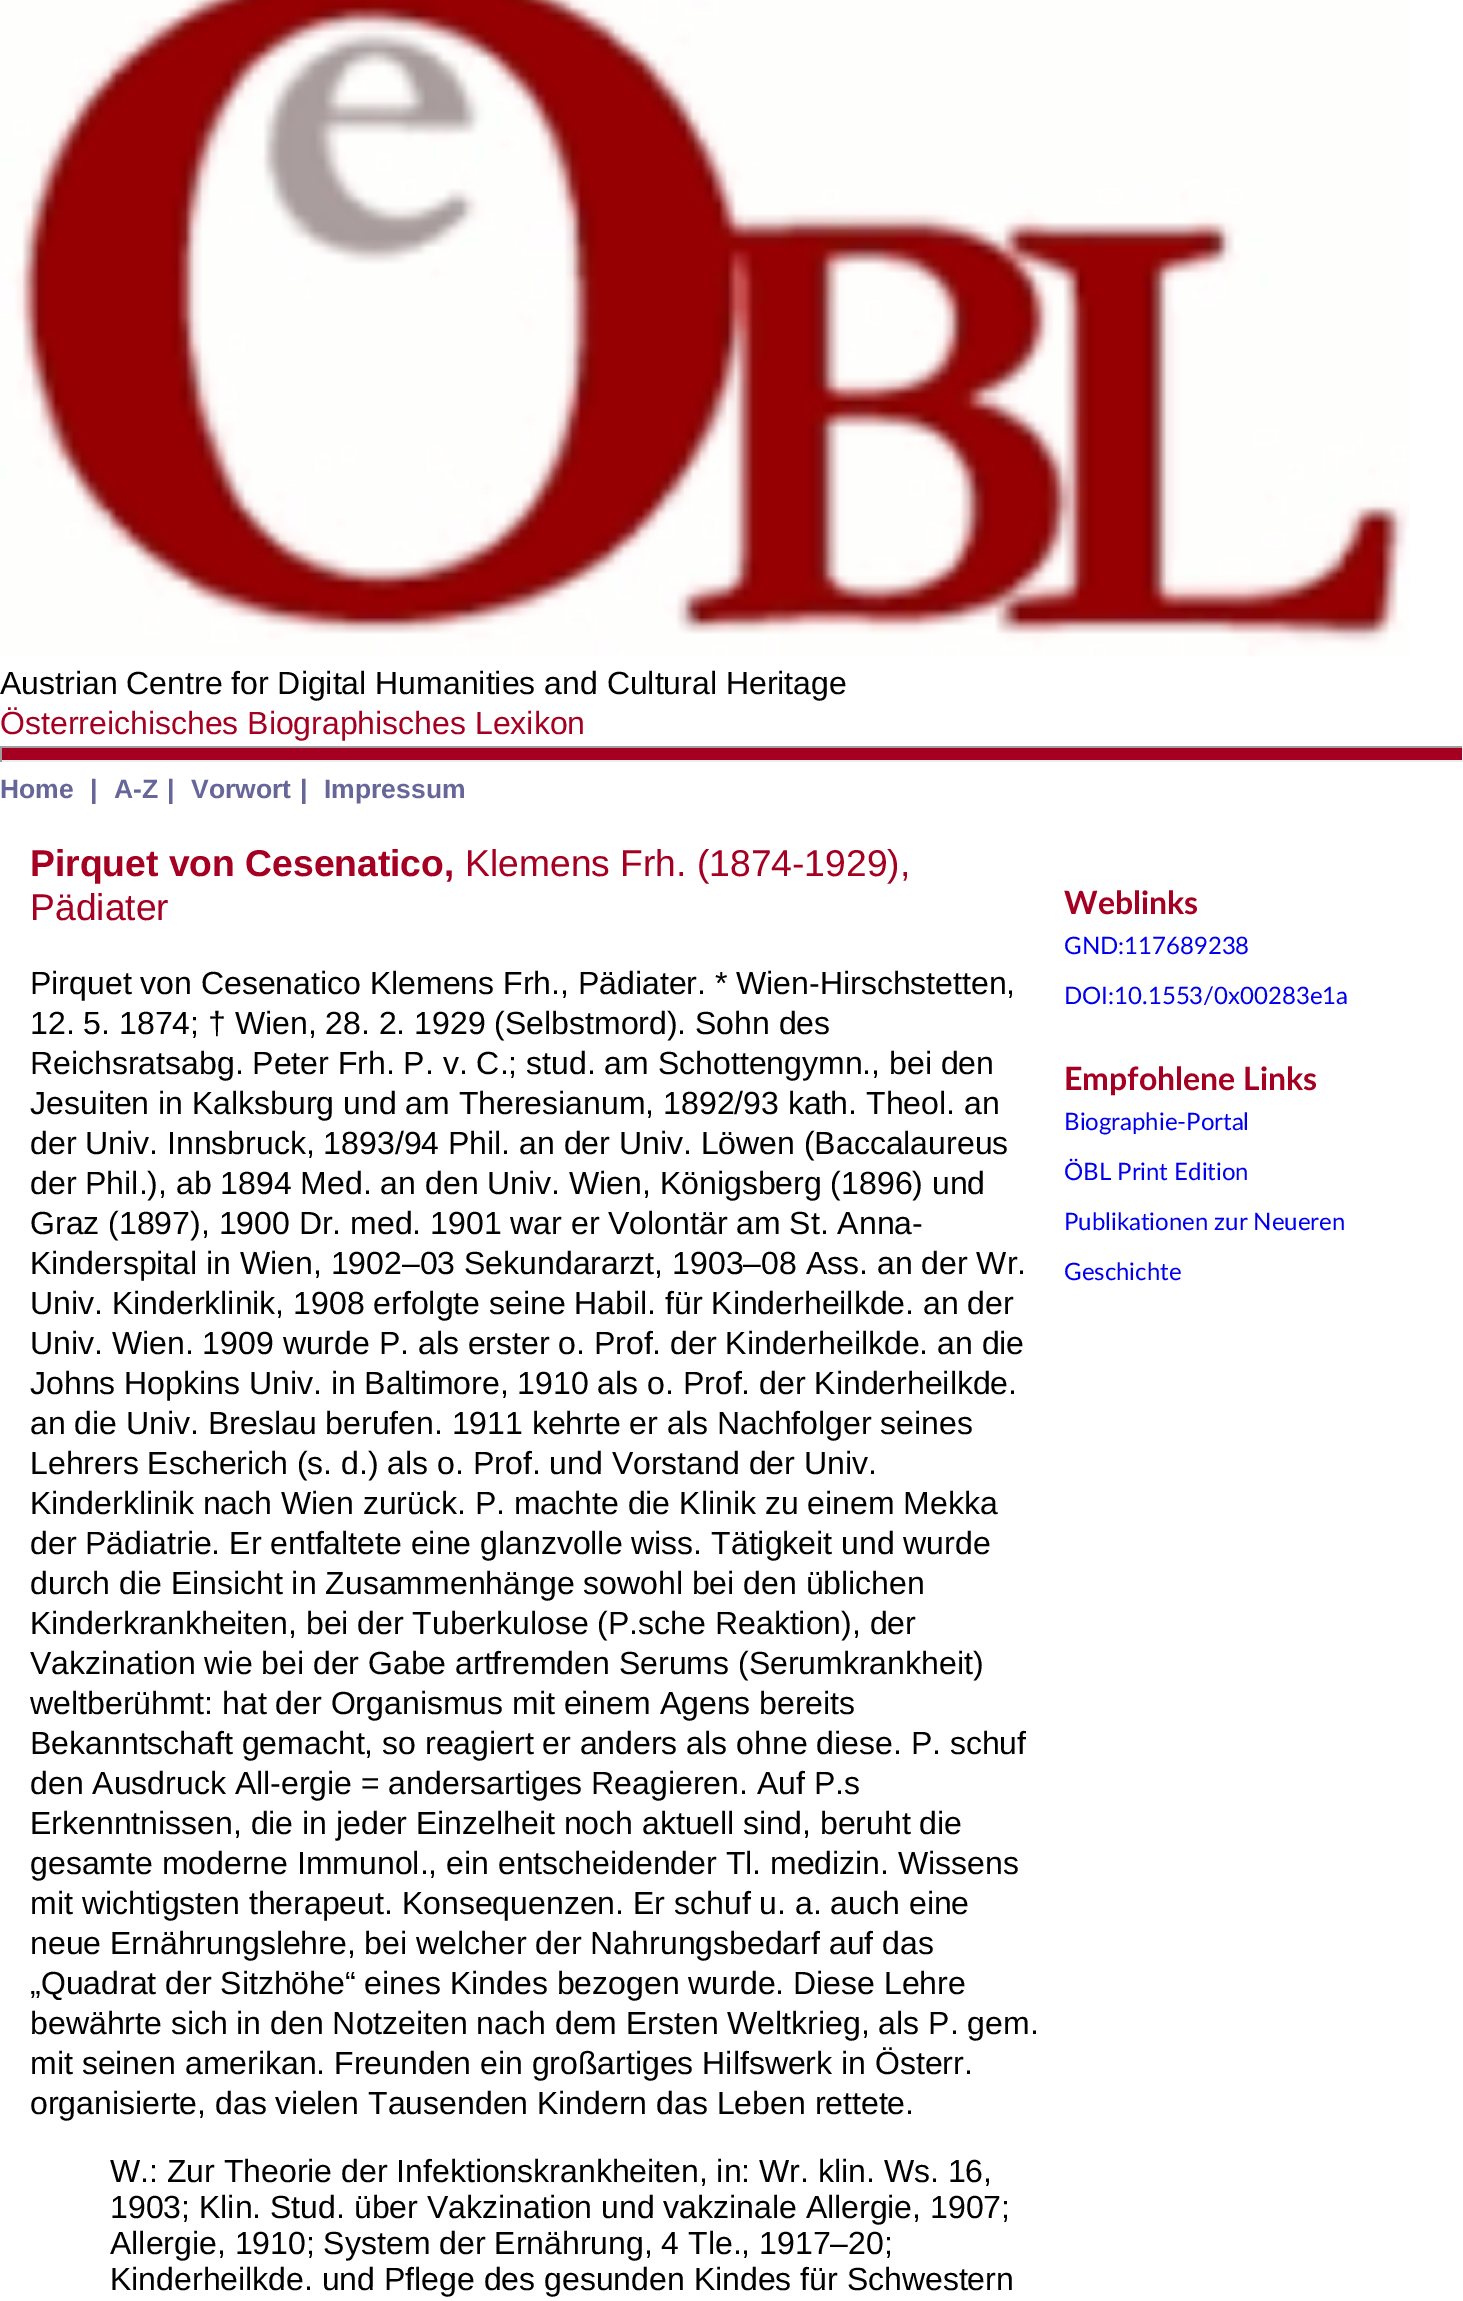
%!PS
<< /PageSize [1463 2301] >> setpagedevice
/co { dup -16 bitshift 255 div exch dup -8 bitshift 255 and 255 div exch 255 and 255 div setrgbcolor } def
/fn { [ exch dup neg 0 0 3 -1 roll 0 0 ] selectfont } def
/tx { co fn moveto show } def
/bx { co rectfill } def
/im { 5 dict begin { /h /w /y /x /name } { exch def } forall
  gsave x y translate w h scale
  w h 8 [w 0 0 h 0 0] name (r) file false 3 colorimage grestore end } def
0 2301 translate 1 -1 scale
4 setmiterlimit
0 0 1463 2301 16#FFFFFF bx
(media/1.raw) 0 0 1410 656 im
2 748 1460 12 16#A50021 bx
0 746 1463 2 16#9F9F9F bx
1462 746 1 16 16#EEEEEE bx
0 760 1463 2 16#EEEEEE bx
0 746 2 16 16#9F9F9F bx
(Austrian Centre for Digital Humanities and Cultural Heritage) 0 694 /LiberationSans-Regular 32 16#000000 tx
(Österreichisches Biographisches Lexikon) 0 734 /LiberationSans-Regular 32 16#A50021 tx
(Home) 0 798 /LiberationSans-Bold 26.5 16#666699 tx
(|) 90 798 /LiberationSans-Bold 26.5 16#666699 tx
(A-Z) 114 798 /LiberationSans-Bold 26.5 16#666699 tx
(|) 167 798 /LiberationSans-Bold 26.5 16#666699 tx
(Vorwort) 191 798 /LiberationSans-Bold 26.5 16#666699 tx
(|) 300 798 /LiberationSans-Bold 26.5 16#666699 tx
(Impressum) 324 798 /LiberationSans-Bold 26.5 16#666699 tx
(Pirquet von Cesenatico,) 30 876 /LiberationSans-Bold 37.25 16#A50021 tx
(Klemens Frh. \(1874-1929\),) 465 876 /LiberationSans-Regular 37.25 16#A50021 tx
(Pädiater) 30 920 /LiberationSans-Regular 37.25 16#A50021 tx
(Pirquet von Cesenatico Klemens Frh., Pädiater. * Wien-Hirschstetten,) 30 994 /LiberationSans-Regular 32 16#000000 tx
(12. 5. 1874; † Wien, 28. 2. 1929 \(Selbstmord\).) 30 1034 /LiberationSans-Regular 32 16#000000 tx
(Sohn des) 695 1034 /LiberationSans-Regular 32 16#000000 tx
(Reichsratsabg. Peter Frh. P. v. C.; stud. am Schottengymn., bei den) 30 1074 /LiberationSans-Regular 32 16#000000 tx
(Jesuiten in Kalksburg und am Theresianum, 1892/93 kath. Theol. an) 30 1114 /LiberationSans-Regular 32 16#000000 tx
(der Univ. Innsbruck, 1893/94 Phil. an der Univ. Löwen \(Baccalaureus) 30 1154 /LiberationSans-Regular 32 16#000000 tx
(der Phil.\), ab 1894 Med. an den Univ. Wien, Königsberg \(1896\) und) 30 1194 /LiberationSans-Regular 32 16#000000 tx
(Graz \(1897\), 1900 Dr. med. 1901 war er Volontär am St. Anna-) 30 1234 /LiberationSans-Regular 32 16#000000 tx
(Kinderspital in Wien, 1902–03 Sekundararzt, 1903–08 Ass. an der Wr.) 30 1274 /LiberationSans-Regular 32 16#000000 tx
(Univ. Kinderklinik, 1908 erfolgte seine Habil. für Kinderheilkde. an der) 30 1314 /LiberationSans-Regular 32 16#000000 tx
(Univ. Wien. 1909 wurde P. als erster o. Prof. der Kinderheilkde. an die) 30 1354 /LiberationSans-Regular 32 16#000000 tx
(Johns Hopkins Univ. in Baltimore, 1910 als o. Prof. der Kinderheilkde.) 30 1394 /LiberationSans-Regular 32 16#000000 tx
(an die Univ. Breslau berufen. 1911 kehrte er als Nachfolger seines) 30 1434 /LiberationSans-Regular 32 16#000000 tx
(Lehrers Escherich \(s. d.\) als o. Prof. und Vorstand der Univ.) 30 1474 /LiberationSans-Regular 32 16#000000 tx
(Kinderklinik nach Wien zurück. P. machte die Klinik zu einem Mekka) 30 1514 /LiberationSans-Regular 32 16#000000 tx
(der Pädiatrie. Er entfaltete eine glanzvolle wiss. Tätigkeit und wurde) 30 1554 /LiberationSans-Regular 32 16#000000 tx
(durch die Einsicht in Zusammenhänge sowohl bei den üblichen) 30 1594 /LiberationSans-Regular 32 16#000000 tx
(Kinderkrankheiten, bei der Tuberkulose \(P.sche Reaktion\), der) 30 1634 /LiberationSans-Regular 32 16#000000 tx
(Vakzination wie bei der Gabe artfremden Serums \(Serumkrankheit\)) 30 1674 /LiberationSans-Regular 32 16#000000 tx
(weltberühmt: hat der Organismus mit einem Agens bereits) 30 1714 /LiberationSans-Regular 32 16#000000 tx
(Bekanntschaft gemacht, so reagiert er anders als ohne diese. P. schuf) 30 1754 /LiberationSans-Regular 32 16#000000 tx
(den Ausdruck All-ergie = andersartiges Reagieren. Auf P.s) 30 1794 /LiberationSans-Regular 32 16#000000 tx
(Erkenntnissen, die in jeder Einzelheit noch aktuell sind, beruht die) 30 1834 /LiberationSans-Regular 32 16#000000 tx
(gesamte moderne Immunol., ein entscheidender Tl. medizin. Wissens) 30 1874 /LiberationSans-Regular 32 16#000000 tx
(mit wichtigsten therapeut. Konsequenzen. Er schuf u. a. auch eine) 30 1914 /LiberationSans-Regular 32 16#000000 tx
(neue Ernährungslehre, bei welcher der Nahrungsbedarf auf das) 30 1954 /LiberationSans-Regular 32 16#000000 tx
(„Quadrat der Sitzhöhe“ eines Kindes bezogen wurde. Diese Lehre) 30 1994 /LiberationSans-Regular 32 16#000000 tx
(bewährte sich in den Notzeiten nach dem Ersten Weltkrieg, als P. gem.) 30 2034 /LiberationSans-Regular 32 16#000000 tx
(mit seinen amerikan. Freunden ein großartiges Hilfswerk in Österr.) 30 2074 /LiberationSans-Regular 32 16#000000 tx
(organisierte, das vielen Tausenden Kindern das Leben rettete.) 30 2114 /LiberationSans-Regular 32 16#000000 tx
(W.: Zur Theorie der Infektionskrankheiten, in: Wr. klin. Ws. 16,) 110 2182 /LiberationSans-Regular 32 16#000000 tx
(1903; Klin. Stud. über Vakzination und vakzinale Allergie, 1907;) 110 2218 /LiberationSans-Regular 32 16#000000 tx
(Allergie, 1910; System der Ernährung, 4 Tle., 1917–20;) 110 2254 /LiberationSans-Regular 32 16#000000 tx
(Kinderheilkde. und Pflege des gesunden Kindes für Schwestern) 110 2290 /LiberationSans-Regular 32 16#000000 tx
(Weblinks) 1064 914 /Lato-Bold 32 16#A50021 tx
(GND:117689238) 1064 954 /Lato-Regular 24 16#0000EE tx
(DOI:10.1553/0x00283e1a) 1064 1004 /Lato-Regular 24 16#0000EE tx
(Empfohlene Links) 1064 1090 /Lato-Bold 32 16#A50021 tx
(Biographie-Portal) 1064 1130 /Lato-Regular 24 16#0000EE tx
(ÖBL Print Edition) 1064 1180 /Lato-Regular 24 16#0000EE tx
(Publikationen zur Neueren) 1064 1230 /Lato-Regular 24 16#0000EE tx
(Geschichte) 1064 1280 /Lato-Regular 24 16#0000EE tx
showpage
